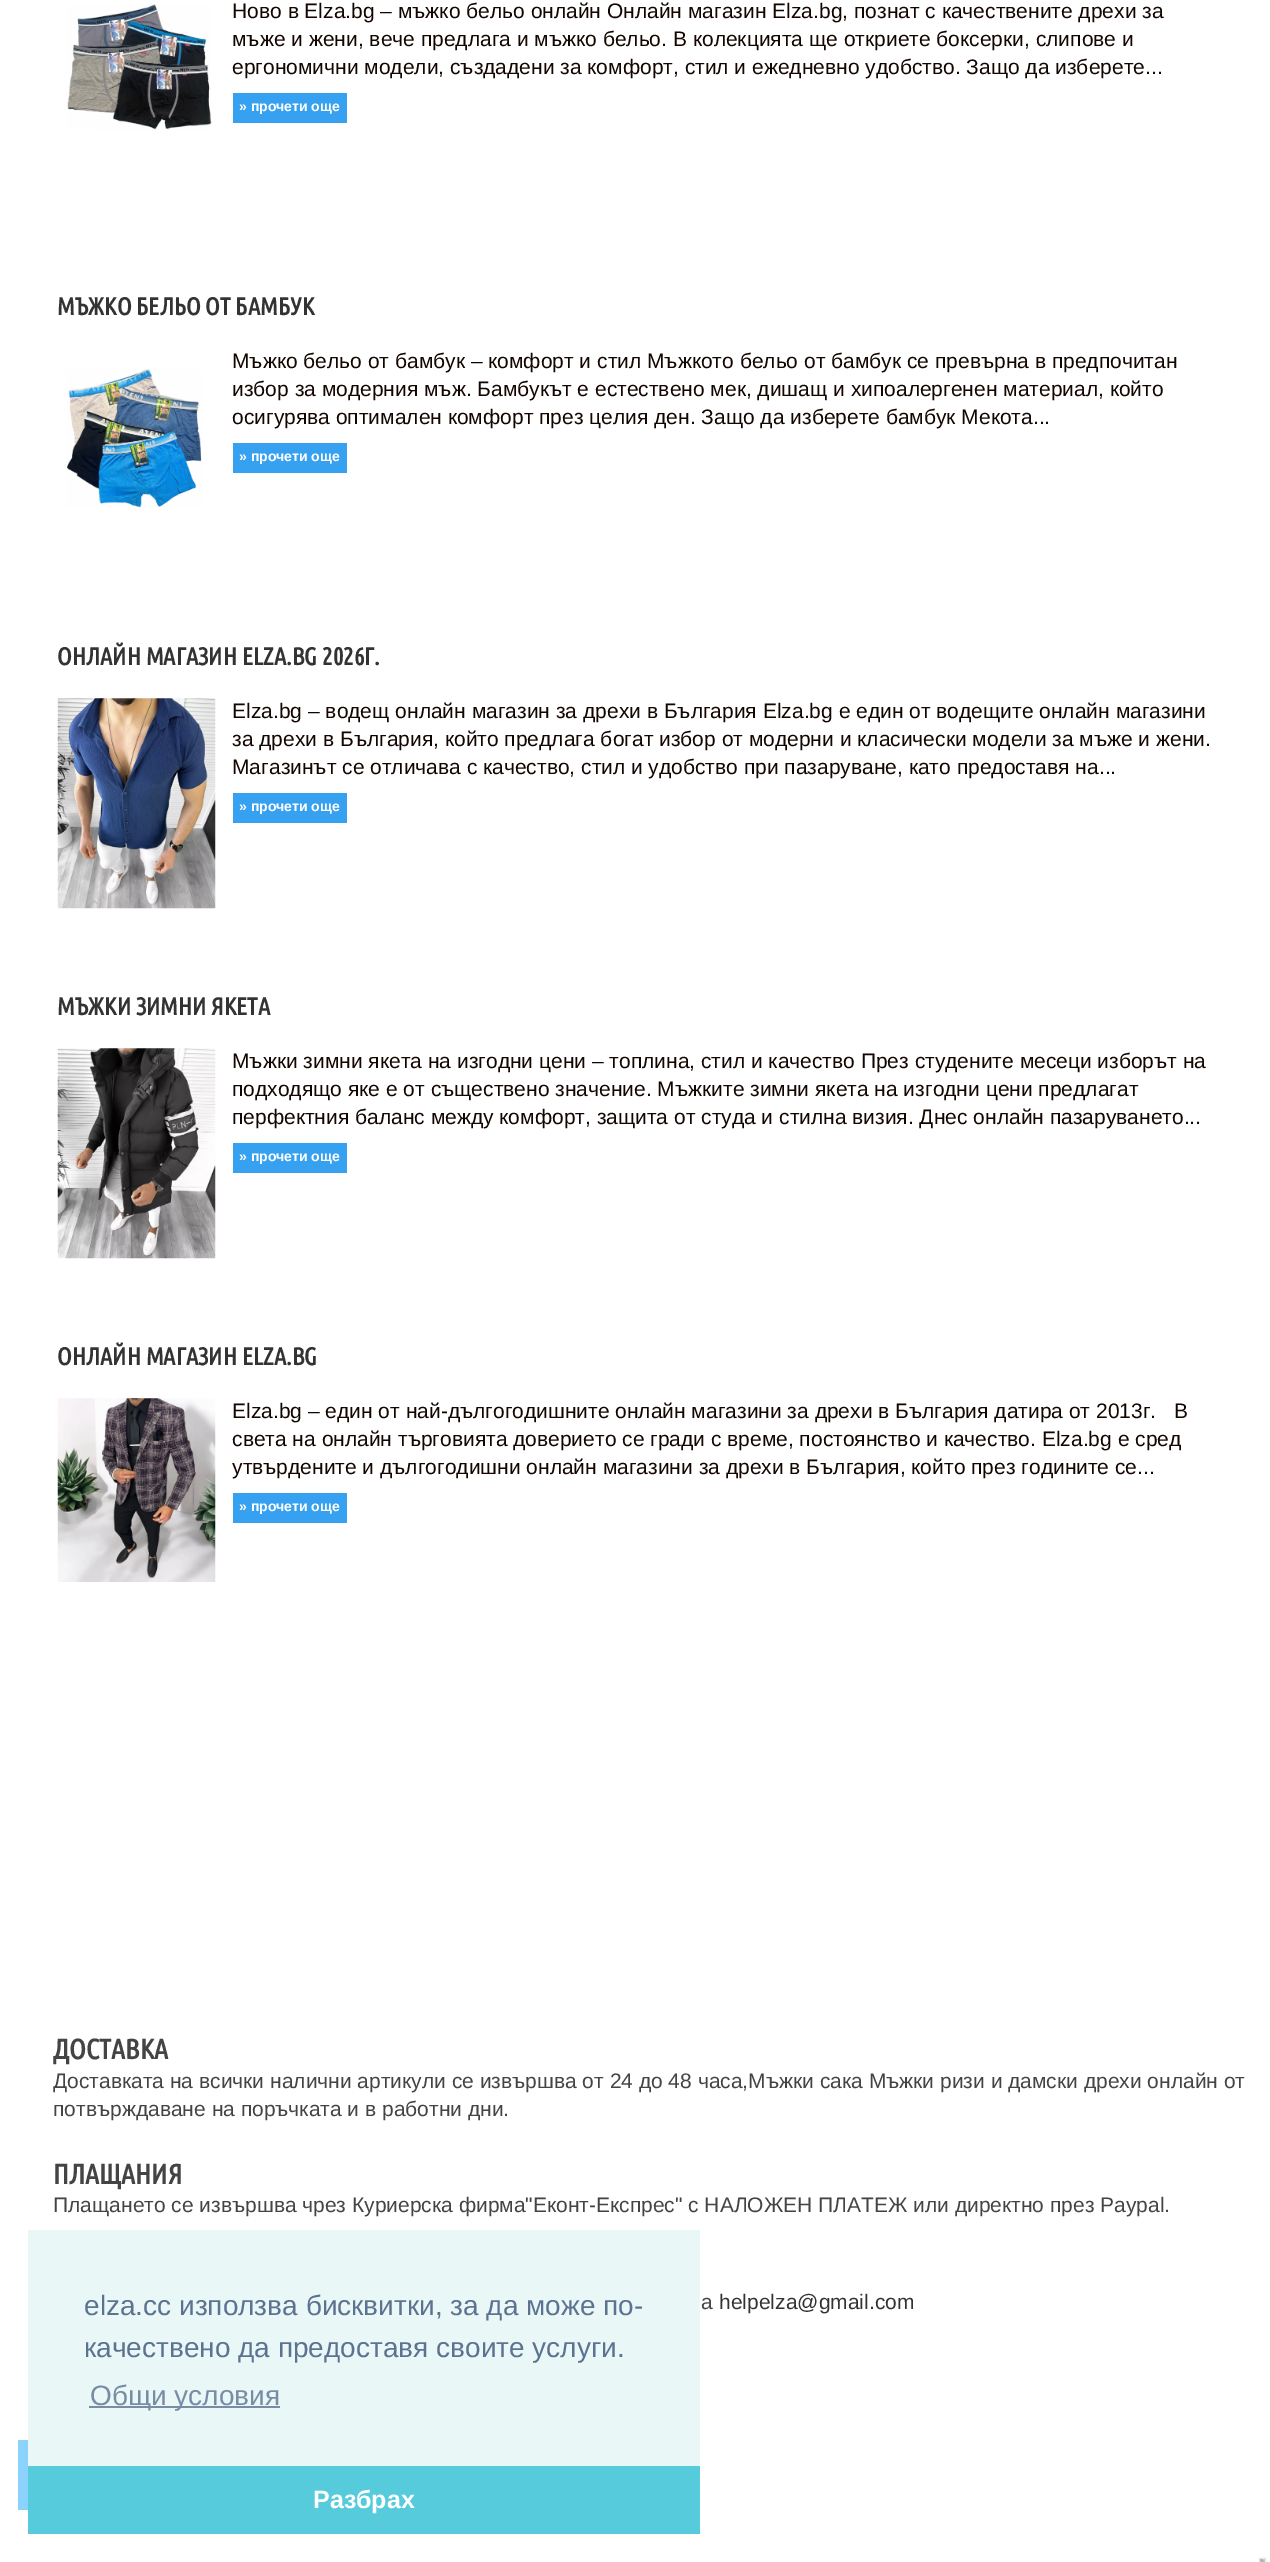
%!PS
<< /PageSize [1270 2562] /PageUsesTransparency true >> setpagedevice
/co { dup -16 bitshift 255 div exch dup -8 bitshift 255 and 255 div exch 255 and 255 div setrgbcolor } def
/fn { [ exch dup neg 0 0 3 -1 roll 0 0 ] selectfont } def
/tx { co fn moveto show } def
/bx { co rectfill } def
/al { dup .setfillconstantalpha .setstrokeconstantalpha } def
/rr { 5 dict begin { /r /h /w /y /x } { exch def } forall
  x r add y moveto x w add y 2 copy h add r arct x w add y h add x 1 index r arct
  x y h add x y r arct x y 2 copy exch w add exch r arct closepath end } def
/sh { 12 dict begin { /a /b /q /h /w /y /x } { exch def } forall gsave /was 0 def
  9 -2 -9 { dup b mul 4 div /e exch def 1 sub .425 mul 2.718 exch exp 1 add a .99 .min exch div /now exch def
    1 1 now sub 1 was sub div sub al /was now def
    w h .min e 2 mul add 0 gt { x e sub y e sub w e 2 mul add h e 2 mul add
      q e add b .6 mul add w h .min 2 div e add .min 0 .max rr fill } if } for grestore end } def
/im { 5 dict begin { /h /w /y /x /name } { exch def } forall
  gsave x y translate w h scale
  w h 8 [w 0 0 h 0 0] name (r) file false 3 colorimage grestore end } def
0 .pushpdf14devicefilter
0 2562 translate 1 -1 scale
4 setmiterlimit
0 0 1270 2562 16#FFFFFF bx
(media/1.raw) 67 4 145 126 im
233 93 114 30 16#36A0F1 bx
(media/2.raw) 66 369 136 139 im
233 443 114 30 16#36A0F1 bx
(media/3.raw) 57 698 159 211 im
233 793 114 30 16#36A0F1 bx
(media/4.raw) 57 1048 159 211 im
233 1143 114 30 16#36A0F1 bx
(media/5.raw) 57 1398 159 184 im
233 1493 114 30 16#36A0F1 bx
16#AFAFAF co
1260 2559 5 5 0 1 1 sh
1260 2559 2 2 16#AFAFAF bx
18 2440 10 70 16#8BD2FD bx
28 2230 672 236 16#EAF7F7 bx
89 2406 191 2 16#788DA5 bx
28 2466 672 68 16#56CBDB bx
(Ново в Elza.bg – мъжко бельо онлайн Онлайн магазин Elza.bg, познат с качествените дрехи за) 232 18 /LiberationSans-Regular 21 16#130500 tx
(мъже и жени, вече предлага и мъжко бельо. В колекцията ще откриете боксерки, слипове и) 232 46 /LiberationSans-Regular 21 16#130500 tx
(ергономични модели, създадени за комфорт, стил и ежедневно удобство. Защо да изберете...) 232 74 /LiberationSans-Regular 21 16#130500 tx
(» прочети още) 239 111 /LiberationSans-Bold 14 16#FFFFFF tx
(МЪЖКО БЕЛЬО ОТ БАМБУК) 57 315 /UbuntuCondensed-Bold 24.5 16#333333 tx
(Мъжко бельо от бамбук – комфорт и стил Мъжкото бельо от бамбук се превърна в предпочитан) 232 368 /LiberationSans-Regular 21 16#130500 tx
(избор за модерния мъж. Бамбукът е естествено мек, дишащ и хипоалергенен материал, който) 232 396 /LiberationSans-Regular 21 16#130500 tx
(осигурява оптимален комфорт през целия ден. Защо да изберете бамбук Мекота...) 232 424 /LiberationSans-Regular 21 16#130500 tx
(» прочети още) 239 461 /LiberationSans-Bold 14 16#FFFFFF tx
(ОНЛАЙН МАГАЗИН ELZA.BG 2026Г.) 57 665 /UbuntuCondensed-Bold 24.5 16#333333 tx
(Elza.bg – водещ онлайн магазин за дрехи в България Elza.bg е един от водещите онлайн магазини) 232 718 /LiberationSans-Regular 21 16#130500 tx
(за дрехи в България, който предлага богат избор от модерни и класически модели за мъже и жени.) 232 746 /LiberationSans-Regular 21 16#130500 tx
(Магазинът се отличава с качество, стил и удобство при пазаруване, като предоставя на...) 232 774 /LiberationSans-Regular 21 16#130500 tx
(» прочети още) 239 811 /LiberationSans-Bold 14 16#FFFFFF tx
(МЪЖКИ ЗИМНИ ЯКЕТА) 57 1015 /UbuntuCondensed-Bold 24.5 16#333333 tx
(Мъжки зимни якета на изгодни цени – топлина, стил и качество През студените месеци изборът на) 232 1068 /LiberationSans-Regular 21 16#130500 tx
(подходящо яке е от съществено значение. Мъжките зимни якета на изгодни цени предлагат) 232 1096 /LiberationSans-Regular 21 16#130500 tx
(перфектния баланс между комфорт, защита от студа и стилна визия. Днес онлайн пазаруването...) 232 1124 /LiberationSans-Regular 21 16#130500 tx
(» прочети още) 239 1161 /LiberationSans-Bold 14 16#FFFFFF tx
(ОНЛАЙН МАГАЗИН ELZA.BG) 57 1365 /UbuntuCondensed-Bold 24.5 16#333333 tx
(Elza.bg – един от най-дългогодишните онлайн магазини за дрехи в България датира от 2013г.) 232 1418 /LiberationSans-Regular 21 16#130500 tx
(В) 1174 1418 /LiberationSans-Regular 21 16#130500 tx
(света на онлайн търговията доверието се гради с време, постоянство и качество. Elza.bg е сред) 232 1446 /LiberationSans-Regular 21 16#130500 tx
(утвърдените и дългогодишни онлайн магазини за дрехи в България, който през годините се...) 232 1474 /LiberationSans-Regular 21 16#130500 tx
(» прочети още) 239 1511 /LiberationSans-Bold 14 16#FFFFFF tx
(ДОСТАВКА) 53 2059 /UbuntuCondensed-Bold 28 16#444444 tx
(Доставката на всички налични артикули се извършва от 24 до 48 часа,Мъжки сака Мъжки ризи и дамски дрехи онлайн от) 53 2088 /LiberationSans-Regular 21 16#444444 tx
(потвърждаване на поръчката и в работни дни.) 53 2116 /LiberationSans-Regular 21 16#444444 tx
(ПЛАЩАНИЯ) 53 2184 /UbuntuCondensed-Bold 28 16#444444 tx
(Плащането се извършва чрез Куриерска фирма"Еконт-Експрес" с НАЛОЖЕН ПЛАТЕЖ или директно през Paypal.) 53 2212 /LiberationSans-Regular 21 16#444444 tx
(а) 701 2309 /LiberationSans-Regular 21 16#444444 tx
(helpelza@gmail.com) 719 2309 /LiberationSans-Regular 21 16#333333 tx
(elza.cc използва бисквитки, за да може по-) 84 2315 /LiberationSans-Regular 28 16#5C7291 tx
(качествено да предоставя своите услуги.) 84 2357 /LiberationSans-Regular 28 16#5C7291 tx
(Общи условия) 90 2405 /LiberationSans-Regular 28 16#788DA5 tx
(Разбрах) 313 2508 /LiberationSans-Bold 25 16#FFFFFF tx
.poppdf14devicefilter showpage
